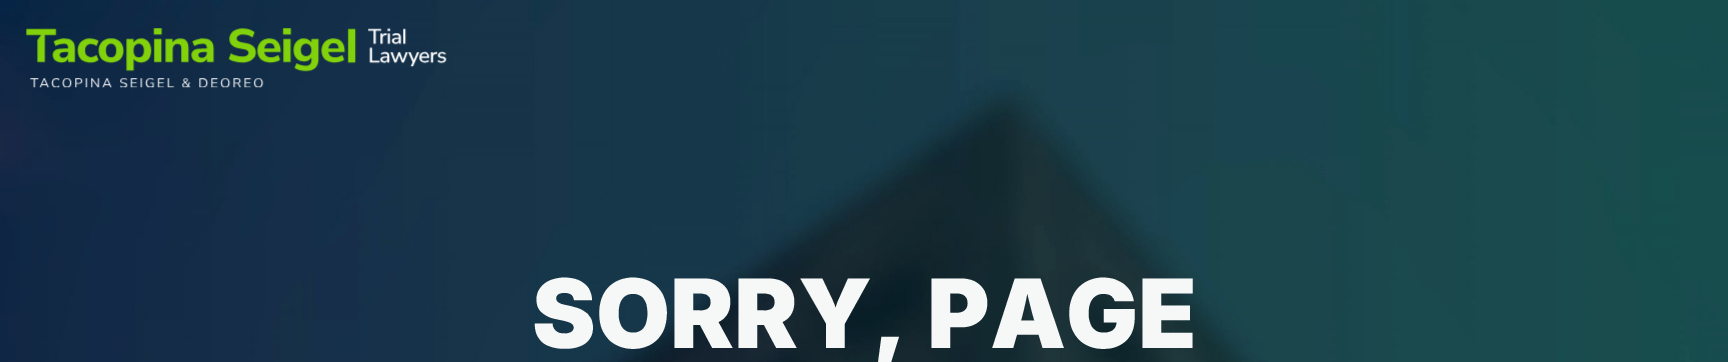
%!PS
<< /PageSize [1728 362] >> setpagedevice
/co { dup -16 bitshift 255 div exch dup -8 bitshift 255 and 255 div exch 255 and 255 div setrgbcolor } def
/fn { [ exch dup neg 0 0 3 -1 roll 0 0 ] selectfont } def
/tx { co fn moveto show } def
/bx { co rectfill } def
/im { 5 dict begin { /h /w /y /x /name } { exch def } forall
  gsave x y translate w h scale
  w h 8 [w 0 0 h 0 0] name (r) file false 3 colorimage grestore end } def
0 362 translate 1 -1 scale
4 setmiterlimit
0 0 1728 362 16#FFFFFF bx
(media/2.raw) 0 0 1728 362 im
(media/1.raw) 26 28 421 60 im
(SORRY, PAGE) 532 348 /Inter-Black 95.75 16#F6F7F7 tx
showpage
